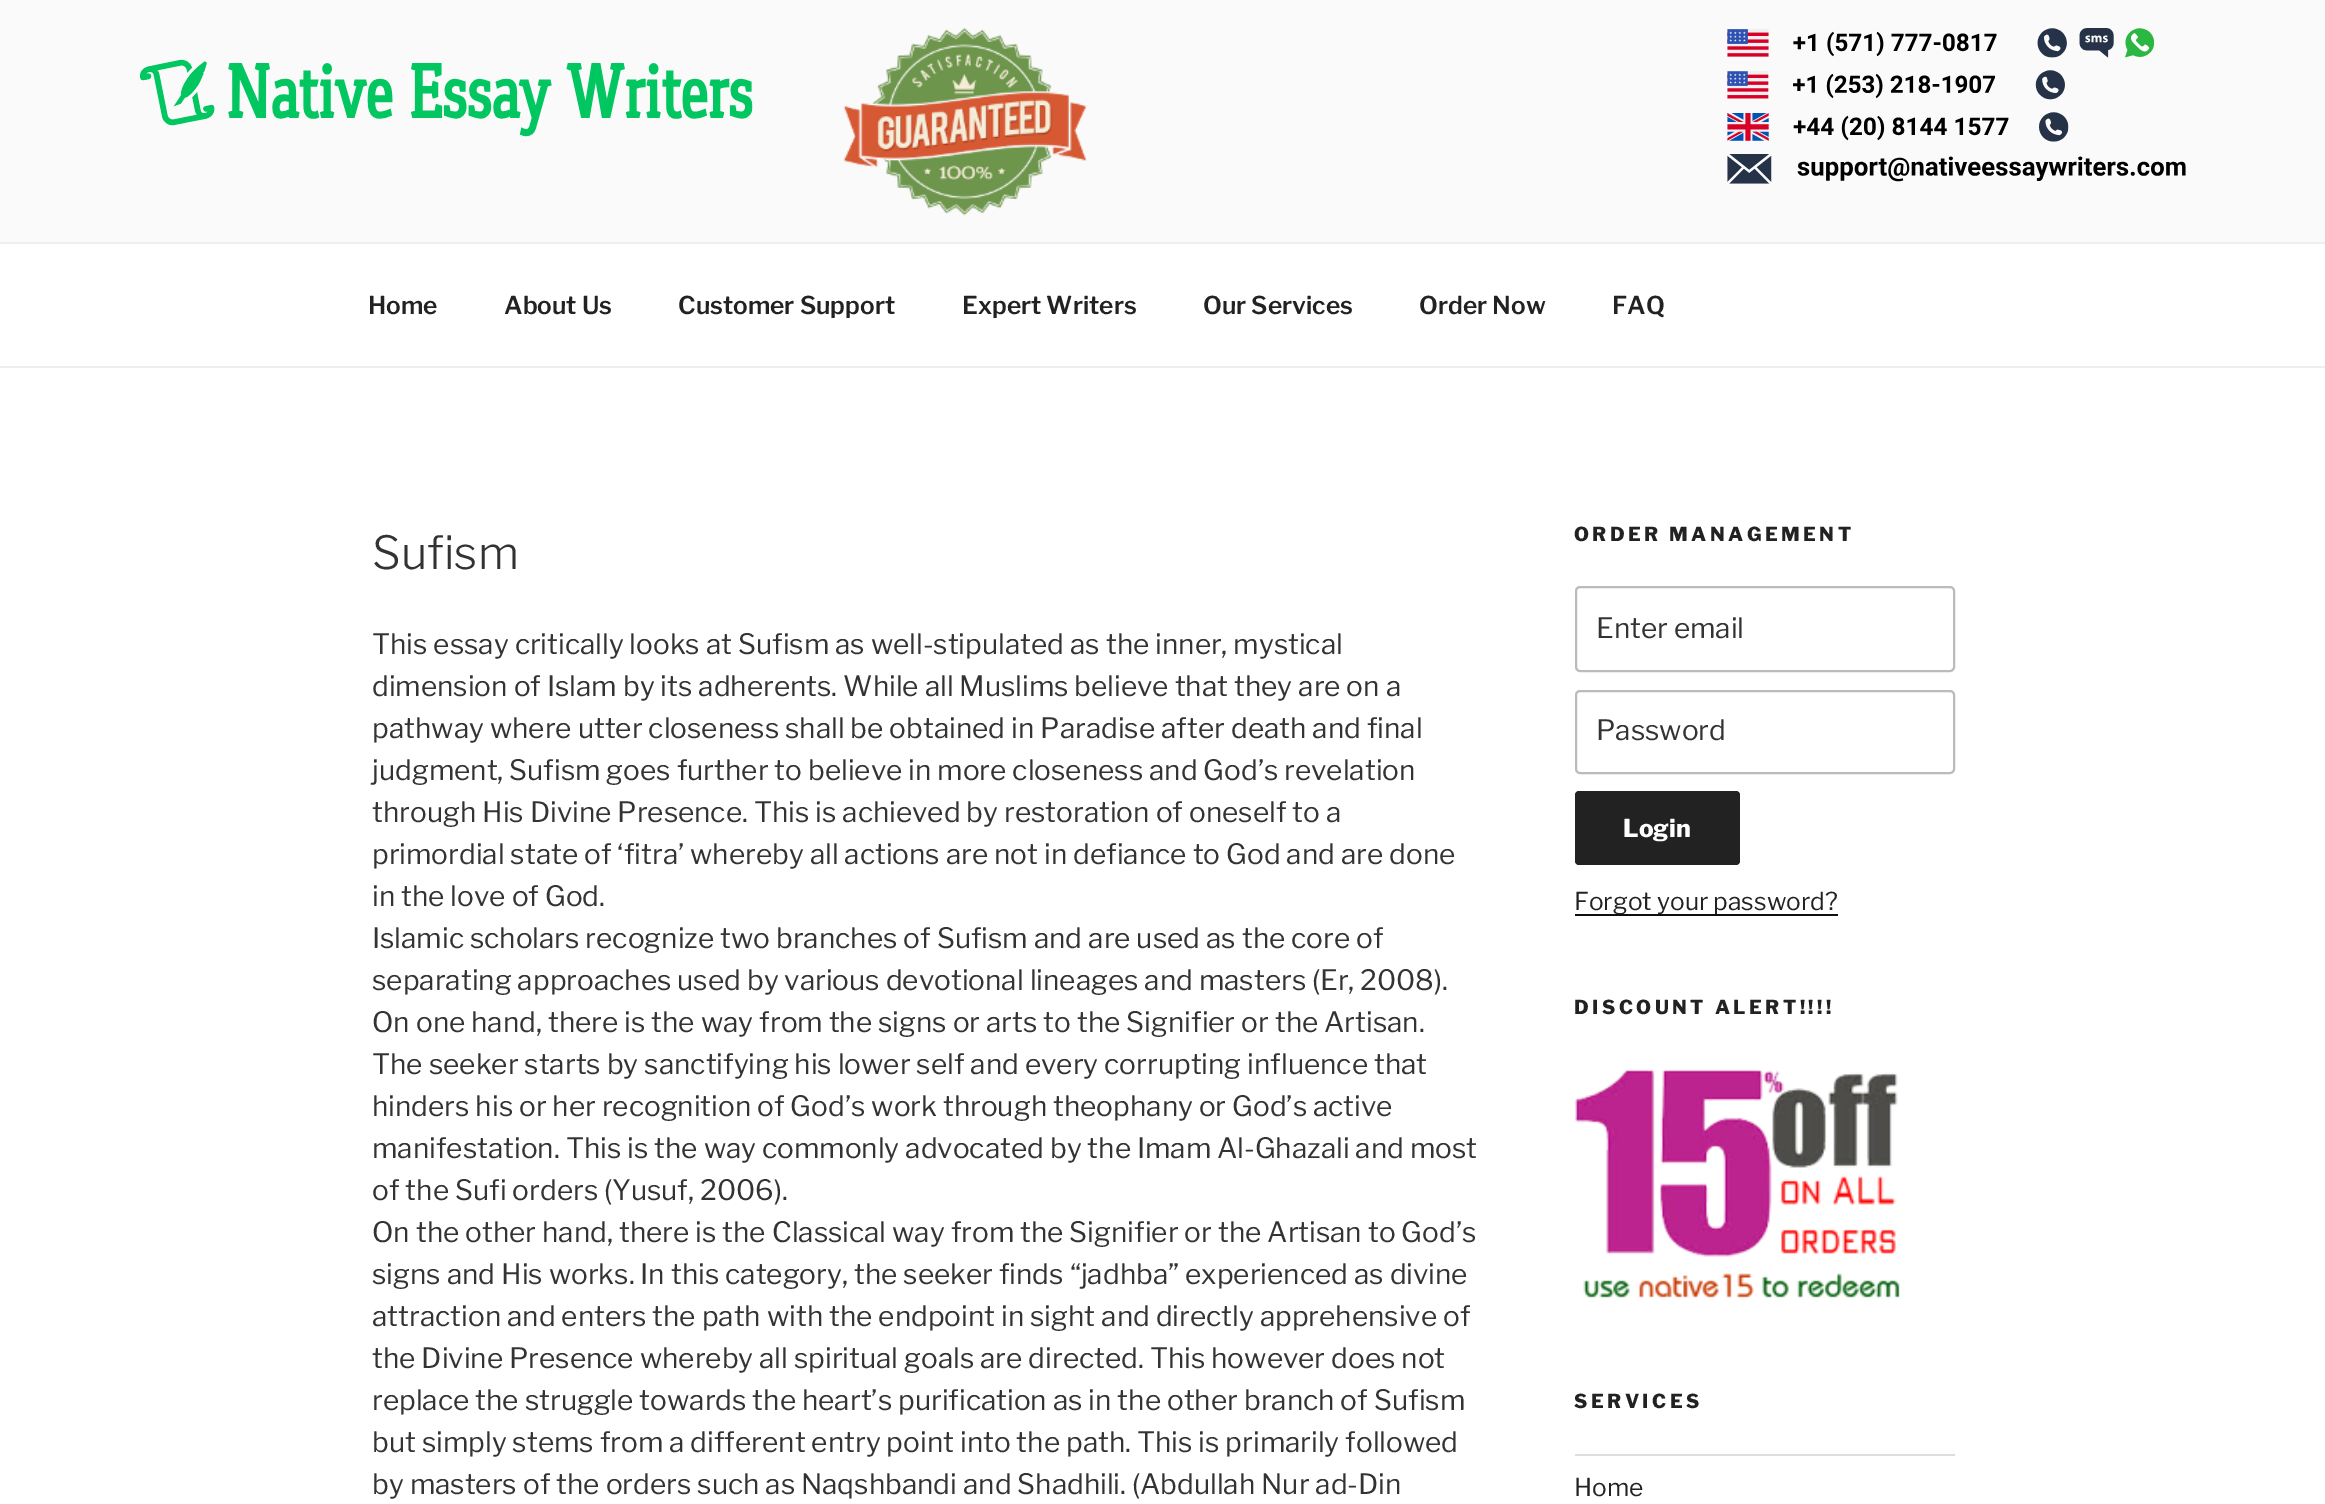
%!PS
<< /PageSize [2325 1504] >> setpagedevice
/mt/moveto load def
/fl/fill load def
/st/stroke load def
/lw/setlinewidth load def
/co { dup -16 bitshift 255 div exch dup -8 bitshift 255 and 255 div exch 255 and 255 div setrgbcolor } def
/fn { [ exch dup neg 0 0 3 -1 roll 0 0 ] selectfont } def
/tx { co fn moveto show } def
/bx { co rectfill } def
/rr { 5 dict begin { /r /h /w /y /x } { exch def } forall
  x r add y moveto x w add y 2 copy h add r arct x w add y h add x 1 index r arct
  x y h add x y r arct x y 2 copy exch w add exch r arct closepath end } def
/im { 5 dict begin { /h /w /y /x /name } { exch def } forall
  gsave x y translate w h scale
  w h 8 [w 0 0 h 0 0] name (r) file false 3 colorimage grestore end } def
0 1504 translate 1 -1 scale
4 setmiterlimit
0 0 2325 1504 16#FFFFFF bx
0 0 2325 242 16#FAFAFA bx
(media/1.raw) 140 59 613 78 im
(media/2.raw) 843 28 244 188 im
(media/3.raw) 1727 28 427 30 im
(media/4.raw) 1727 70 338 30 im
(media/5.raw) 1727 112 342 30 im
(media/6.raw) 1727 154 459 30 im
0 242 2325 2 16#EEEEEE bx
0 366 2325 2 16#EEEEEE bx
16#BBBBBB co
2 lw
1576 587 378 84 4 rr st
1576 691 378 82 4 rr st
16#222222 co
1575 791 165 74 4 rr fl
1575 914 263 2 16#0F0F0F bx
(media/7.raw) 1575 1069 325 229 im
1575 1454 380 2 16#DDDDDD bx
(Home) 368 314 /LibreFranklin-SemiBold 24.5 16#222222 tx
(About Us) 504 314 /LibreFranklin-SemiBold 24.5 16#222222 tx
(Customer Support) 678 314 /LibreFranklin-SemiBold 24.5 16#222222 tx
(Expert Writers) 962 314 /LibreFranklin-SemiBold 24.5 16#222222 tx
(Our Services) 1203 314 /LibreFranklin-SemiBold 24.5 16#222222 tx
(Order Now) 1419 314 /LibreFranklin-SemiBold 24.5 16#222222 tx
(FAQ) 1612 314 /LibreFranklin-SemiBold 24.5 16#222222 tx
(Sufism) 372 569 /LibreFranklin-Light 45.5 16#333333 tx
(This essay critically looks at Sufism as well-stipulated as the inner, mystical) 372 654 /LibreFranklin-Regular 28 16#333333 tx
(dimension of Islam by its adherents. While all Muslims believe that they are on a) 372 696 /LibreFranklin-Regular 28 16#333333 tx
(pathway where utter closeness shall be obtained in Paradise after death and final) 372 738 /LibreFranklin-Regular 28 16#333333 tx
(judgment, Sufism goes further to believe in more closeness and God’s revelation) 372 780 /LibreFranklin-Regular 28 16#333333 tx
(through His Divine Presence. This is achieved by restoration of oneself to a) 372 822 /LibreFranklin-Regular 28 16#333333 tx
(primordial state of ‘fitra’ whereby all actions are not in defiance to God and are done) 372 864 /LibreFranklin-Regular 28 16#333333 tx
(in the love of God.) 372 906 /LibreFranklin-Regular 28 16#333333 tx
(Islamic scholars recognize two branches of Sufism and are used as the core of) 372 948 /LibreFranklin-Regular 28 16#333333 tx
(separating approaches used by various devotional lineages and masters \(Er, 2008\).) 372 990 /LibreFranklin-Regular 28 16#333333 tx
(On one hand, there is the way from the signs or arts to the Signifier or the Artisan.) 372 1032 /LibreFranklin-Regular 28 16#333333 tx
(The seeker starts by sanctifying his lower self and every corrupting influence that) 372 1074 /LibreFranklin-Regular 28 16#333333 tx
(hinders his or her recognition of God’s work through theophany or God’s active) 372 1116 /LibreFranklin-Regular 28 16#333333 tx
(manifestation. This is the way commonly advocated by the Imam Al-Ghazali and most) 372 1158 /LibreFranklin-Regular 28 16#333333 tx
(of the Sufi orders \(Yusuf, 2006\).) 372 1200 /LibreFranklin-Regular 28 16#333333 tx
(On the other hand, there is the Classical way from the Signifier or the Artisan to God’s) 372 1242 /LibreFranklin-Regular 28 16#333333 tx
(signs and His works. In this category, the seeker finds “jadhba” experienced as divine) 372 1284 /LibreFranklin-Regular 28 16#333333 tx
(attraction and enters the path with the endpoint in sight and directly apprehensive of) 372 1326 /LibreFranklin-Regular 28 16#333333 tx
(the Divine Presence whereby all spiritual goals are directed. This however does not) 372 1368 /LibreFranklin-Regular 28 16#333333 tx
(replace the struggle towards the heart’s purification as in the other branch of Sufism) 372 1410 /LibreFranklin-Regular 28 16#333333 tx
(but simply stems from a different entry point into the path. This is primarily followed) 372 1452 /LibreFranklin-Regular 28 16#333333 tx
(by masters of the orders such as Naqshbandi and Shadhili. \(Abdullah Nur ad-Din) 372 1494 /LibreFranklin-Regular 28 16#333333 tx
/LibreFranklin-ExtraBold 19.25 fn
16#222222 co
1574 541 mt 3.5 0 (ORDER MANAGEMENT) ashow
(Enter email) 1596 638 /LibreFranklin-Regular 28 16#333333 tx
(Password) 1596 740 /LibreFranklin-Regular 28 16#333333 tx
(Login) 1623 837 /LibreFranklin-ExtraBold 24.5 16#FFFFFF tx
(Forgot your password?) 1574 910 /LibreFranklin-Regular 24.5 16#222222 tx
/LibreFranklin-ExtraBold 19.25 fn
1574 1014 mt 3.5 0 (DISCOUNT ALERT!!!!) ashow
1574 1408 mt 3.5 0 (SERVICES) ashow
(Home) 1574 1496 /LibreFranklin-Regular 24.5 16#222222 tx
showpage
